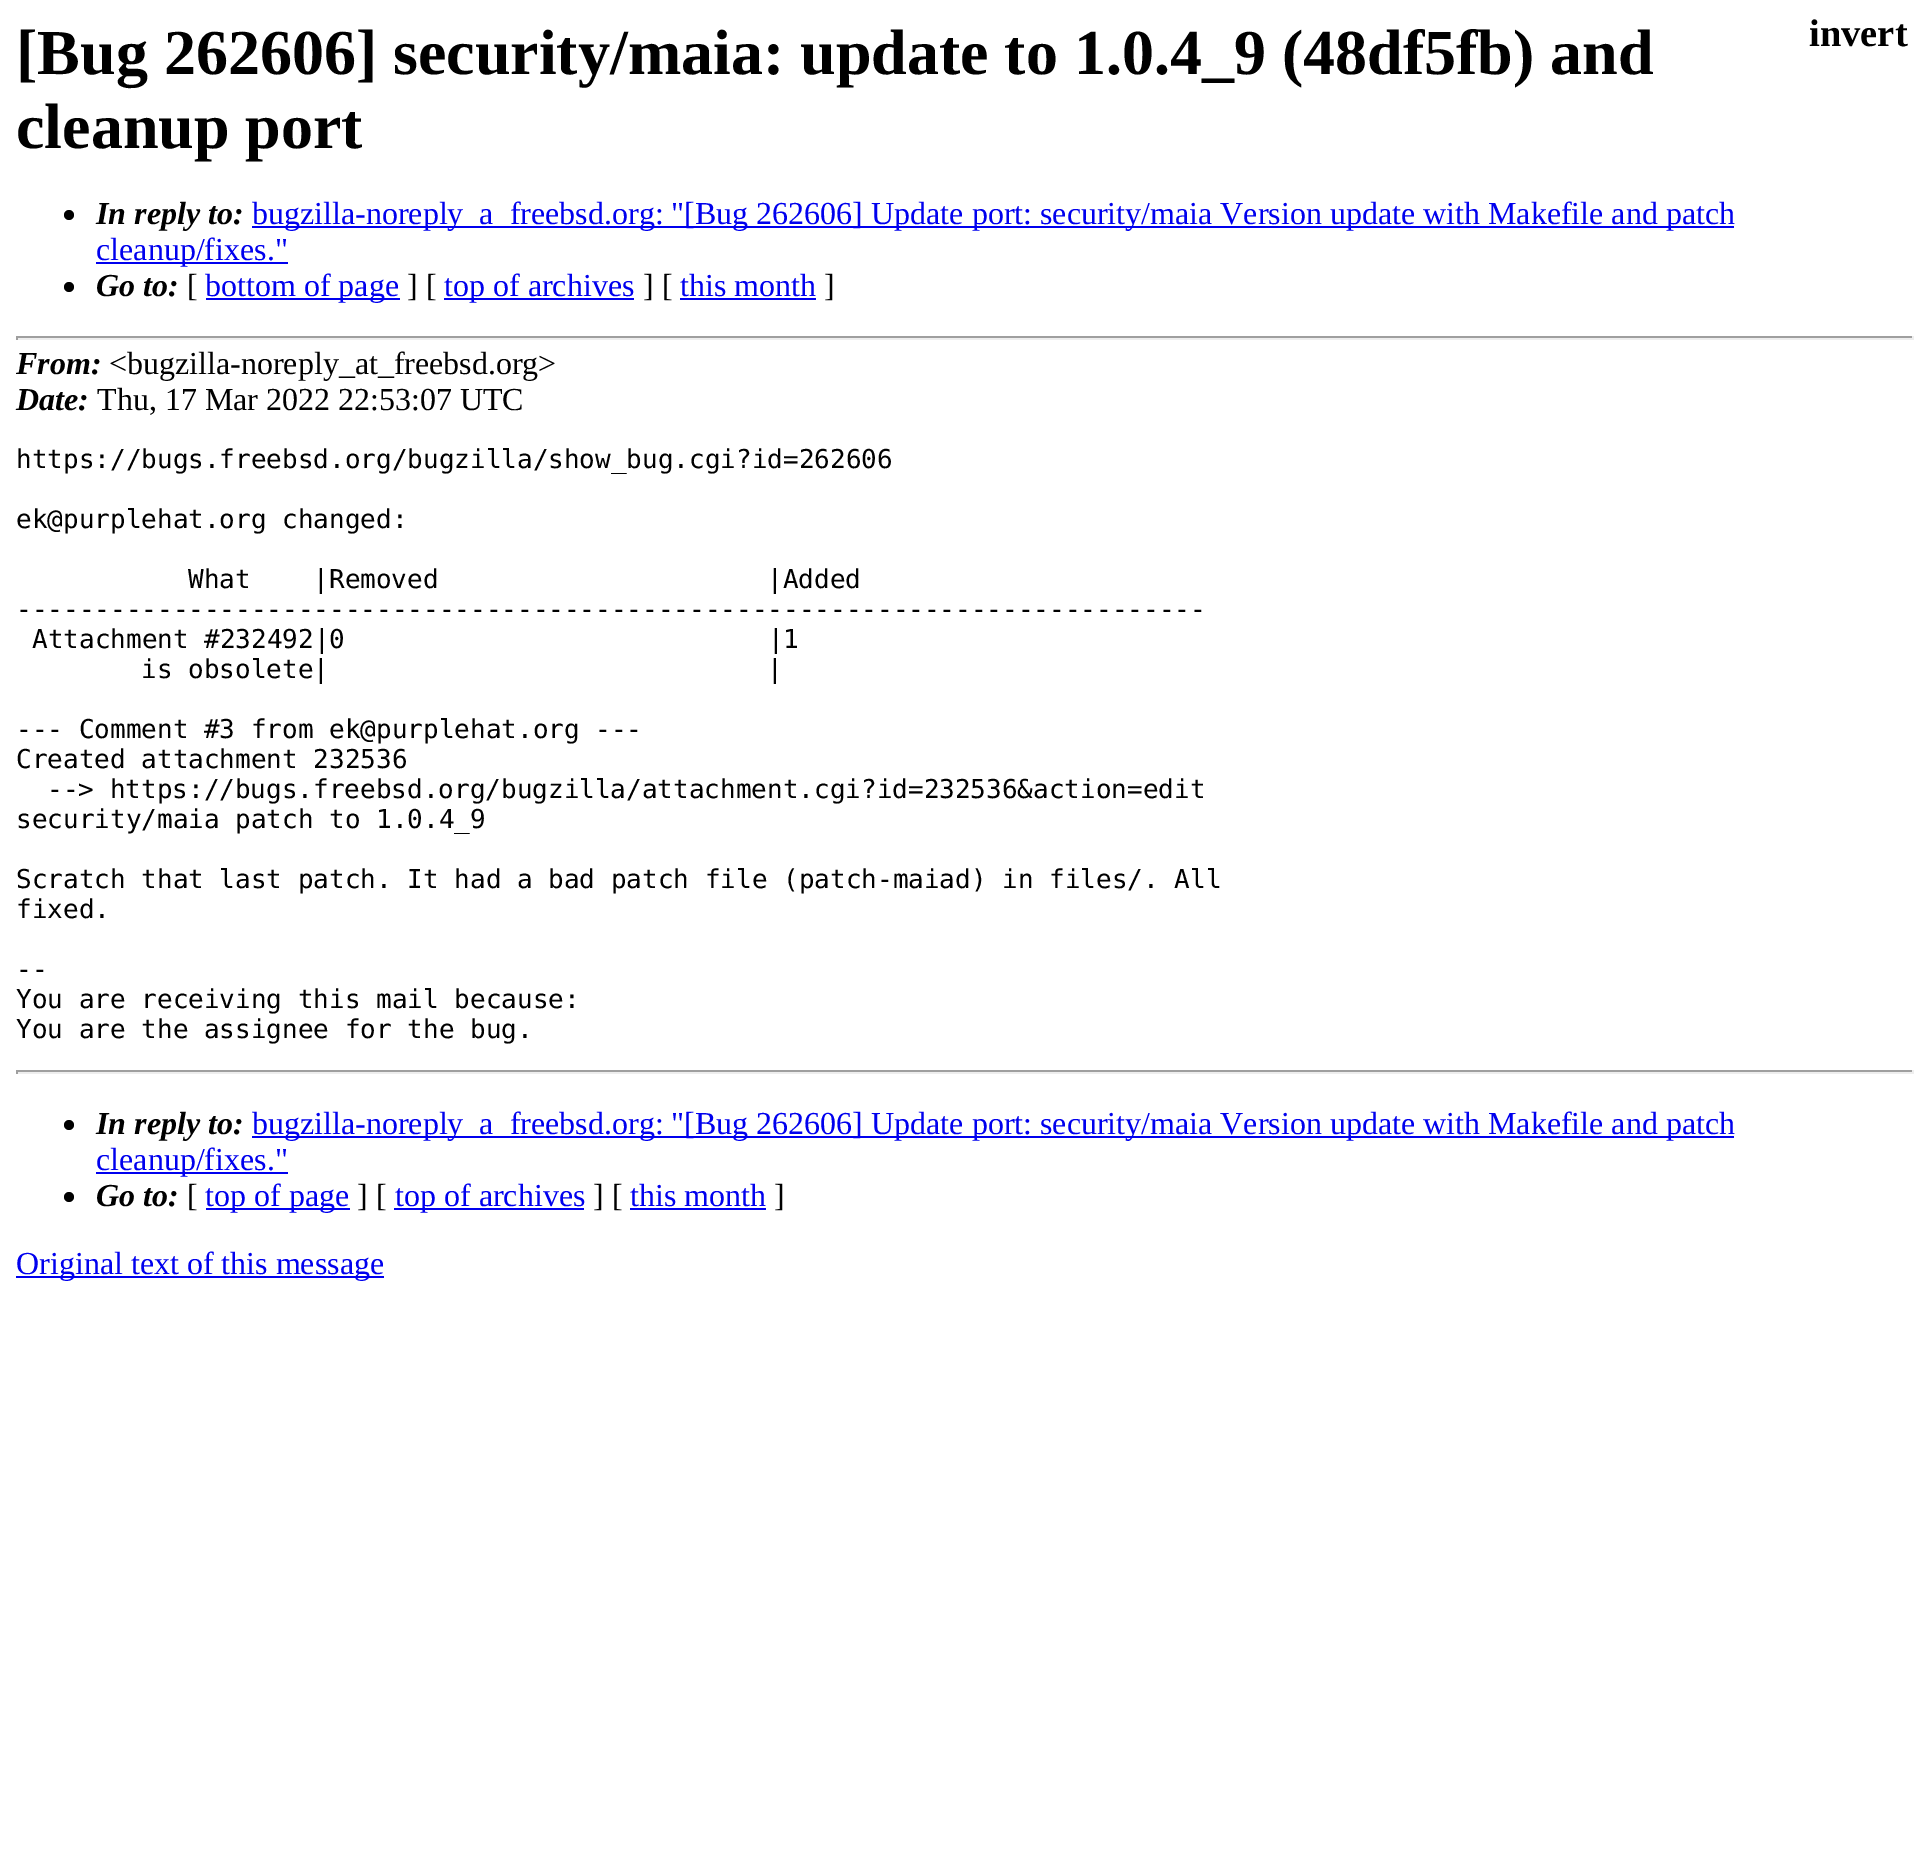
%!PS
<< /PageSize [1929 1865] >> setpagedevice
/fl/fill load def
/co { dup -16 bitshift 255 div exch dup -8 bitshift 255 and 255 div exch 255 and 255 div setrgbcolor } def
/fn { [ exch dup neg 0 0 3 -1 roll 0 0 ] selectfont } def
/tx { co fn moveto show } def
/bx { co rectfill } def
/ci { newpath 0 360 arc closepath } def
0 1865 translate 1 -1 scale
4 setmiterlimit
0 0 1929 1865 16#FFFFFF bx
16#000000 co
69 215 5 ci fl
252 226 1482 2 16#0000EE bx
96 262 192 2 16#0000EE bx
16#000000 co
69 287 5 ci fl
206 298 194 2 16#0000EE bx
444 298 190 2 16#0000EE bx
680 298 136 2 16#0000EE bx
16 336 1898 2 16#9F9F9F bx
1912 336 2 4 16#EEEEEE bx
16 338 1898 2 16#EEEEEE bx
16 336 2 4 16#9F9F9F bx
16 1070 1898 2 16#9F9F9F bx
1912 1070 2 4 16#EEEEEE bx
16 1072 1898 2 16#EEEEEE bx
16 1070 2 4 16#9F9F9F bx
16#000000 co
69 1125 5 ci fl
252 1136 1482 2 16#0000EE bx
96 1172 192 2 16#0000EE bx
16#000000 co
69 1197 5 ci fl
206 1208 144 2 16#0000EE bx
394 1208 190 2 16#0000EE bx
630 1208 136 2 16#0000EE bx
16 1276 368 2 16#0000EE bx
([Bug 262606] security/maia: update to 1.0.4_9 \(48df5fb\) and) 16 74 /LiberationSerif-Bold 64 16#000000 tx
(cleanup port) 16 148 /LiberationSerif-Bold 64 16#000000 tx
(In reply to:) 96 224 /LiberationSerif-BoldItalic 32 16#000000 tx
(bugzilla-noreply_a_freebsd.org: "[Bug 262606] Update port: security/maia Version update with Makefile and patch) 252 224 /LiberationSerif-Regular 32 16#0000EE tx
(cleanup/fixes.") 96 260 /LiberationSerif-Regular 32 16#0000EE tx
(Go to:) 96 296 /LiberationSerif-BoldItalic 32 16#000000 tx
([) 187 296 /LiberationSerif-Regular 32 16#000000 tx
(bottom of page) 205 296 /LiberationSerif-Regular 32 16#0000EE tx
(] [) 407 296 /LiberationSerif-Regular 32 16#000000 tx
(top of archives) 444 296 /LiberationSerif-Regular 32 16#0000EE tx
(] [) 643 296 /LiberationSerif-Regular 32 16#000000 tx
(this month) 680 296 /LiberationSerif-Regular 32 16#0000EE tx
(]) 824 296 /LiberationSerif-Regular 32 16#000000 tx
(invert) 1809 46 /LiberationSerif-Bold 38.5 16#000000 tx
(From:) 16 374 /LiberationSerif-BoldItalic 32 16#000000 tx
(<bugzilla-noreply_at_freebsd.org>) 109 374 /LiberationSerif-Regular 32 16#000000 tx
(Date:) 16 410 /LiberationSerif-BoldItalic 32 16#000000 tx
(Thu, 17 Mar 2022 22:53:07 UTC) 97 410 /LiberationSerif-Regular 32 16#000000 tx
(https://bugs.freebsd.org/bugzilla/show_bug.cgi?id=262606) 16 468 /DejaVuSansMono-Regular 26 16#000000 tx
(ek@purplehat.org changed:) 16 528 /DejaVuSansMono-Regular 26 16#000000 tx
(What    |Removed                     |Added) 188 588 /DejaVuSansMono-Regular 26 16#000000 tx
(----------------------------------------------------------------------------) 16 618 /DejaVuSansMono-Regular 26 16#000000 tx
(Attachment #232492|0                           |1) 32 648 /DejaVuSansMono-Regular 26 16#000000 tx
(is obsolete|                            |) 141 678 /DejaVuSansMono-Regular 26 16#000000 tx
(--- Comment #3 from ek@purplehat.org ---) 16 738 /DejaVuSansMono-Regular 26 16#000000 tx
(Created attachment 232536) 16 768 /DejaVuSansMono-Regular 26 16#000000 tx
(--> https://bugs.freebsd.org/bugzilla/attachment.cgi?id=232536&action=edit) 47 798 /DejaVuSansMono-Regular 26 16#000000 tx
(security/maia patch to 1.0.4_9) 16 828 /DejaVuSansMono-Regular 26 16#000000 tx
(Scratch that last patch. It had a bad patch file \(patch-maiad\) in files/. All) 16 888 /DejaVuSansMono-Regular 26 16#000000 tx
(fixed.) 16 918 /DejaVuSansMono-Regular 26 16#000000 tx
(--) 16 978 /DejaVuSansMono-Regular 26 16#000000 tx
(You are receiving this mail because:) 16 1008 /DejaVuSansMono-Regular 26 16#000000 tx
(You are the assignee for the bug.) 16 1038 /DejaVuSansMono-Regular 26 16#000000 tx
(In reply to:) 96 1134 /LiberationSerif-BoldItalic 32 16#000000 tx
(bugzilla-noreply_a_freebsd.org: "[Bug 262606] Update port: security/maia Version update with Makefile and patch) 252 1134 /LiberationSerif-Regular 32 16#0000EE tx
(cleanup/fixes.") 96 1170 /LiberationSerif-Regular 32 16#0000EE tx
(Go to:) 96 1206 /LiberationSerif-BoldItalic 32 16#000000 tx
([) 187 1206 /LiberationSerif-Regular 32 16#000000 tx
(top of page) 205 1206 /LiberationSerif-Regular 32 16#0000EE tx
(] [) 357 1206 /LiberationSerif-Regular 32 16#000000 tx
(top of archives) 395 1206 /LiberationSerif-Regular 32 16#0000EE tx
(] [) 593 1206 /LiberationSerif-Regular 32 16#000000 tx
(this month) 630 1206 /LiberationSerif-Regular 32 16#0000EE tx
(]) 774 1206 /LiberationSerif-Regular 32 16#000000 tx
(Original text of this message) 16 1274 /LiberationSerif-Regular 32 16#0000EE tx
showpage
